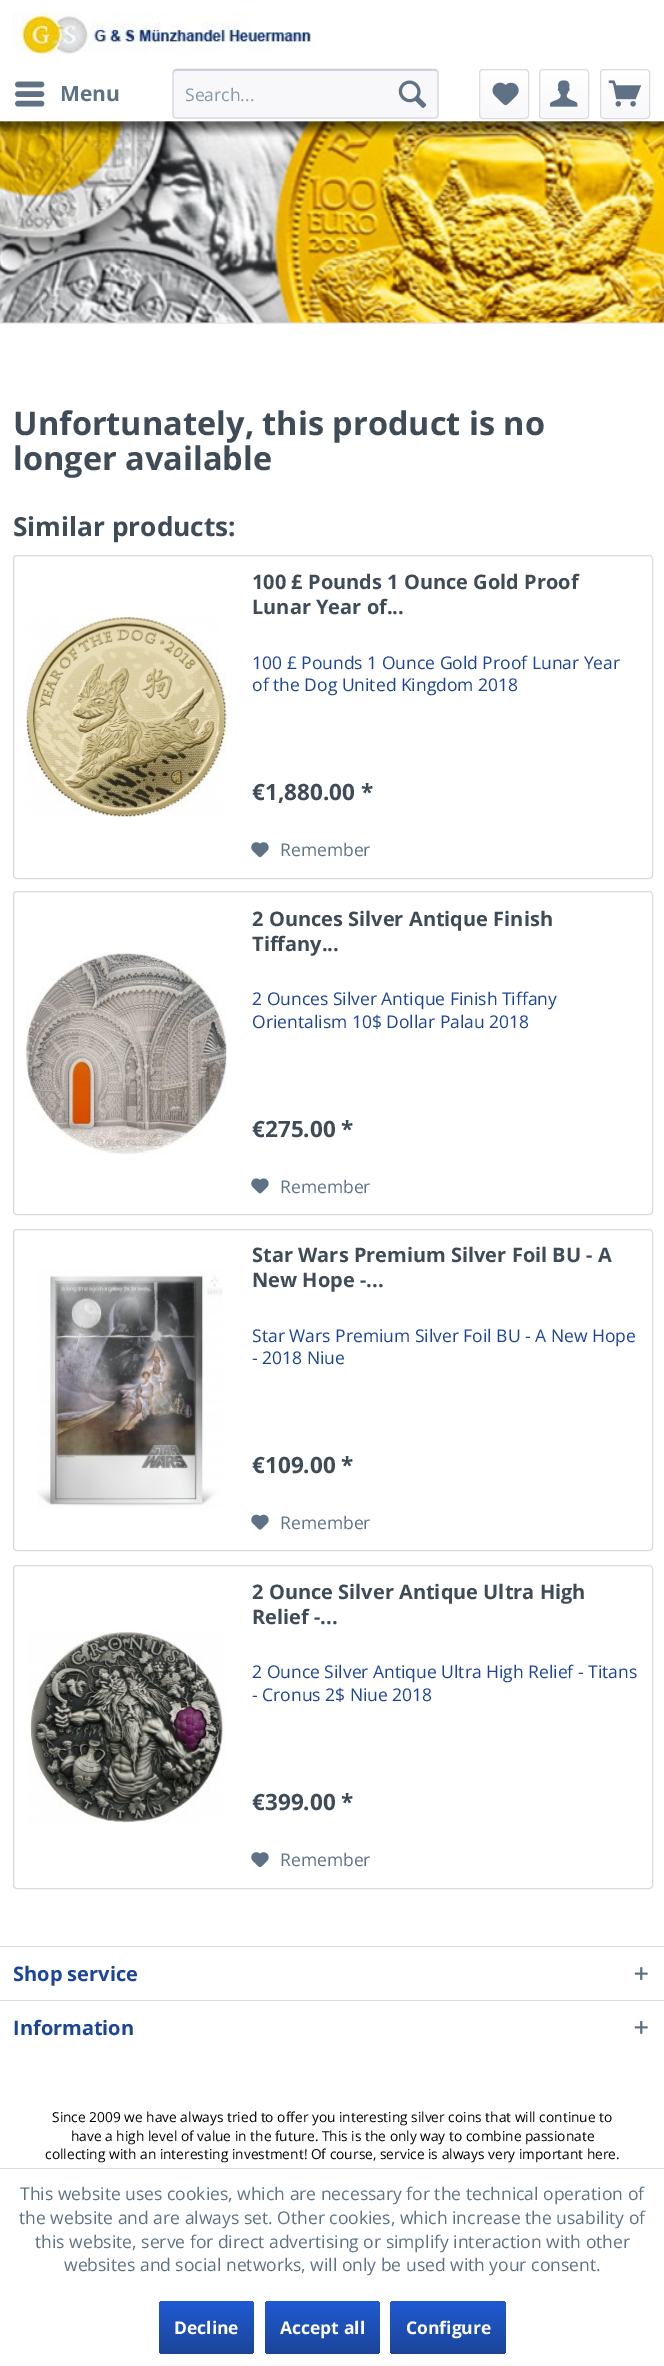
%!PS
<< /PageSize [664 2366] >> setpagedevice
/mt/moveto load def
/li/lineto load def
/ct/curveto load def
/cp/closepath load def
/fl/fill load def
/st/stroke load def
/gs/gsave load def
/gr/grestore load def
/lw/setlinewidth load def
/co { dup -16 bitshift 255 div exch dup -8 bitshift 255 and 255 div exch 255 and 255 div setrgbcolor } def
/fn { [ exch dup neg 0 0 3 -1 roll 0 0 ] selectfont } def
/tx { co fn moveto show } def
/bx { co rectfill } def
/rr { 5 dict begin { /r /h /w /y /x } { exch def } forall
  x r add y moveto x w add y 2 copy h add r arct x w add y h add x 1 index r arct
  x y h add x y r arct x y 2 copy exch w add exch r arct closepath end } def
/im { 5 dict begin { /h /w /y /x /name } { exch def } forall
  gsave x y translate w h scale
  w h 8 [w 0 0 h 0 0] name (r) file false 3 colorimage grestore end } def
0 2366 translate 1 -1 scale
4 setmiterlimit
0 0 664 2366 16#FFFFFF bx
(media/1.raw) 12 12 299 47 im
(media/2.raw) 15 81 30 26 im
16#F8F8FA co
173 69 266 50 4 rr fl
16#DADAE5 co
176 71 mt 435 71 li 436 71 438 72 438 74 ct 438 72 li 438 71 437 70 436 70 ct 176 70 li 175 70 174 71 174 72 ct 174 74 li 174 72 175 71 176 71 ct cp fl
16#CBCBDB co
1.2 lw
174 70.5 mt 176 69.5 li 435 69.5 li 437 70.5 li st
16#DADAE5 co
437 70.5 mt 438 72.5 li 438 115 li 437 117 li 435 118 li 176 118 li 174 117 li 173 115 li 173 72.5 li 174 70.5 li st
(media/3.raw) 398 80 29 28 im
gs 480 70 48 48 2.5 rr clip newpath
<< /ShadingType 2 /ColorSpace /DeviceRGB /Coords [504 70 504 118] /Extend [true true] /Function << /FunctionType 2 /Domain [0 1] /C0 [1 1 1] /C1 [.973 .973 .98] /N 1 >> >> shfill gr
1 lw
479.5 69.5 49 49 3.5 rr st
(media/4.raw) 492 82 27 24 im
gs 540 70 48 48 2.5 rr clip newpath
<< /ShadingType 2 /ColorSpace /DeviceRGB /Coords [564 70 564 118] /Extend [true true] /Function << /FunctionType 2 /Domain [0 1] /C0 [1 1 1] /C1 [.973 .973 .98] /N 1 >> >> shfill gr
539.5 69.5 49 49 3.5 rr st
(media/5.raw) 550 80 28 27 im
gs 601 70 48 48 2.5 rr clip newpath
<< /ShadingType 2 /ColorSpace /DeviceRGB /Coords [625 70 625 118] /Extend [true true] /Function << /FunctionType 2 /Domain [0 1] /C0 [1 1 1] /C1 [.973 .973 .98] /N 1 >> >> shfill gr
600.5 69.5 49 49 3.5 rr st
(media/6.raw) 608 80 34 27 im
(media/7.raw) 0 121 664 203 im
13.5 555.5 639 323 3.5 rr st
(media/8.raw) 26 617 201 200 im
(media/9.raw) 251 842 18 16 im
13.5 891.5 639 323 3.5 rr st
(media/10.raw) 26 953 201 201 im
(media/11.raw) 251 1178 18 16 im
13.5 1229.5 639 321 3.5 rr st
(media/12.raw) 37 1270 186 239 im
(media/13.raw) 251 1514 18 16 im
13.5 1565.5 639 323 3.5 rr st
(media/14.raw) 27 1631 199 192 im
(media/9.raw) 251 1852 18 16 im
0 1946 664 1 16#DADAE5 bx
(media/15.raw) 634 1967 14 14 im
0 2000 664 1 16#DADAE5 bx
(media/16.raw) 634 2020 14 14 im
0 2168 664 1 16#DADAE5 bx
gs 159 2301 95 53 4 rr clip newpath
<< /ShadingType 2 /ColorSpace /DeviceRGB /Coords [206 2301 206 2354] /Extend [true true] /Function << /FunctionType 2 /Domain [0 1] /C0 [.122 .353 .827] /C1 [.11 .271 .6] /N 1 >> >> shfill gr
gs 265 2301 115 53 4 rr clip newpath
<< /ShadingType 2 /ColorSpace /DeviceRGB /Coords [323 2301 323 2354] /Extend [true true] /Function << /FunctionType 2 /Domain [0 1] /C0 [.122 .353 .827] /C1 [.11 .271 .6] /N 1 >> >> shfill gr
gs 390 2301 116 53 4 rr clip newpath
<< /ShadingType 2 /ColorSpace /DeviceRGB /Coords [448 2301 448 2354] /Extend [true true] /Function << /FunctionType 2 /Domain [0 1] /C0 [.122 .353 .827] /C1 [.11 .271 .6] /N 1 >> >> shfill gr
(Menu) 60 101 /OpenSans-Bold 21 16#5F7285 tx
(Search...) 185 101 /OpenSans-Regular 17.5 16#8798A9 tx
(Unfortunately, this product is no) 13 435 /OpenSans-Bold 32.5 16#3F4C58 tx
(longer available) 13 470 /OpenSans-Bold 32.5 16#3F4C58 tx
(Similar products:) 13 536 /OpenSans-Bold 26.25 16#3F4C58 tx
(100 £ Pounds 1 Ounce Gold Proof) 252 589 /OpenSans-Bold 20 16#3F4C58 tx
(Lunar Year of...) 252 614 /OpenSans-Bold 20 16#3F4C58 tx
(100 £ Pounds 1 Ounce Gold Proof Lunar Year) 252 669 /OpenSans-Regular 17.5 16#1C4599 tx
(of the Dog United Kingdom 2018) 252 691 /OpenSans-Regular 17.5 16#1C4599 tx
(€1,880.00 *) 252 800 /OpenSans-Bold 22.5 16#3F4C58 tx
(Remember) 280 856 /OpenSans-Regular 17.5 16#5F7285 tx
(2 Ounces Silver Antique Finish) 252 926 /OpenSans-Bold 20 16#3F4C58 tx
(Tiffany...) 252 951 /OpenSans-Bold 20 16#3F4C58 tx
(2 Ounces Silver Antique Finish Tiffany) 252 1005 /OpenSans-Regular 17.5 16#1C4599 tx
(Orientalism 10$ Dollar Palau 2018) 252 1028 /OpenSans-Regular 17.5 16#1C4599 tx
(€275.00 *) 252 1137 /OpenSans-Bold 22.5 16#3F4C58 tx
(Remember) 280 1193 /OpenSans-Regular 17.5 16#5F7285 tx
(Star Wars Premium Silver Foil BU - A) 252 1262 /OpenSans-Bold 20 16#3F4C58 tx
(New Hope -...) 252 1287 /OpenSans-Bold 20 16#3F4C58 tx
(Star Wars Premium Silver Foil BU - A New Hope) 252 1342 /OpenSans-Regular 17.5 16#1C4599 tx
(- 2018 Niue) 252 1364 /OpenSans-Regular 17.5 16#1C4599 tx
(€109.00 *) 252 1473 /OpenSans-Bold 22.5 16#3F4C58 tx
(Remember) 280 1529 /OpenSans-Regular 17.5 16#5F7285 tx
(2 Ounce Silver Antique Ultra High) 252 1599 /OpenSans-Bold 20 16#3F4C58 tx
(Relief -...) 252 1624 /OpenSans-Bold 20 16#3F4C58 tx
(2 Ounce Silver Antique Ultra High Relief - Titans) 252 1678 /OpenSans-Regular 17.5 16#1C4599 tx
(- Cronus 2$ Niue 2018) 252 1701 /OpenSans-Regular 17.5 16#1C4599 tx
(€399.00 *) 252 1810 /OpenSans-Bold 22.5 16#3F4C58 tx
(Remember) 280 1866 /OpenSans-Regular 17.5 16#5F7285 tx
(Shop service) 13 1981 /OpenSans-Bold 20 16#1C4599 tx
(Information) 13 2035 /OpenSans-Bold 20 16#1C4599 tx
(Since 2009 we have always tried to offer you interesting silver coins that will continue to) 52 2122 /OpenSans-Regular 13.75 16#000000 tx
(have a high level of value in the future. This is the only way to combine passionate) 71 2141 /OpenSans-Regular 13.75 16#000000 tx
(collecting with an interesting investment! Of course, service is always very important here.) 45 2159 /OpenSans-Regular 13.75 16#000000 tx
(This website uses cookies, which are necessary for the technical operation of) 20 2200 /OpenSans-Regular 17.5 16#5F7285 tx
(the website and are always set. Other cookies, which increase the usability of) 19 2224 /OpenSans-Regular 17.5 16#5F7285 tx
(this website, serve for direct advertising or simplify interaction with other) 35 2248 /OpenSans-Regular 17.5 16#5F7285 tx
(websites and social networks, will only be used with your consent.) 64 2271 /OpenSans-Regular 17.5 16#5F7285 tx
(Decline) 174 2334 /OpenSans-Bold 17.5 16#FFFFFF tx
(Accept all) 280 2334 /OpenSans-Bold 17.5 16#FFFFFF tx
(Configure) 406 2334 /OpenSans-Bold 17.5 16#FFFFFF tx
showpage
